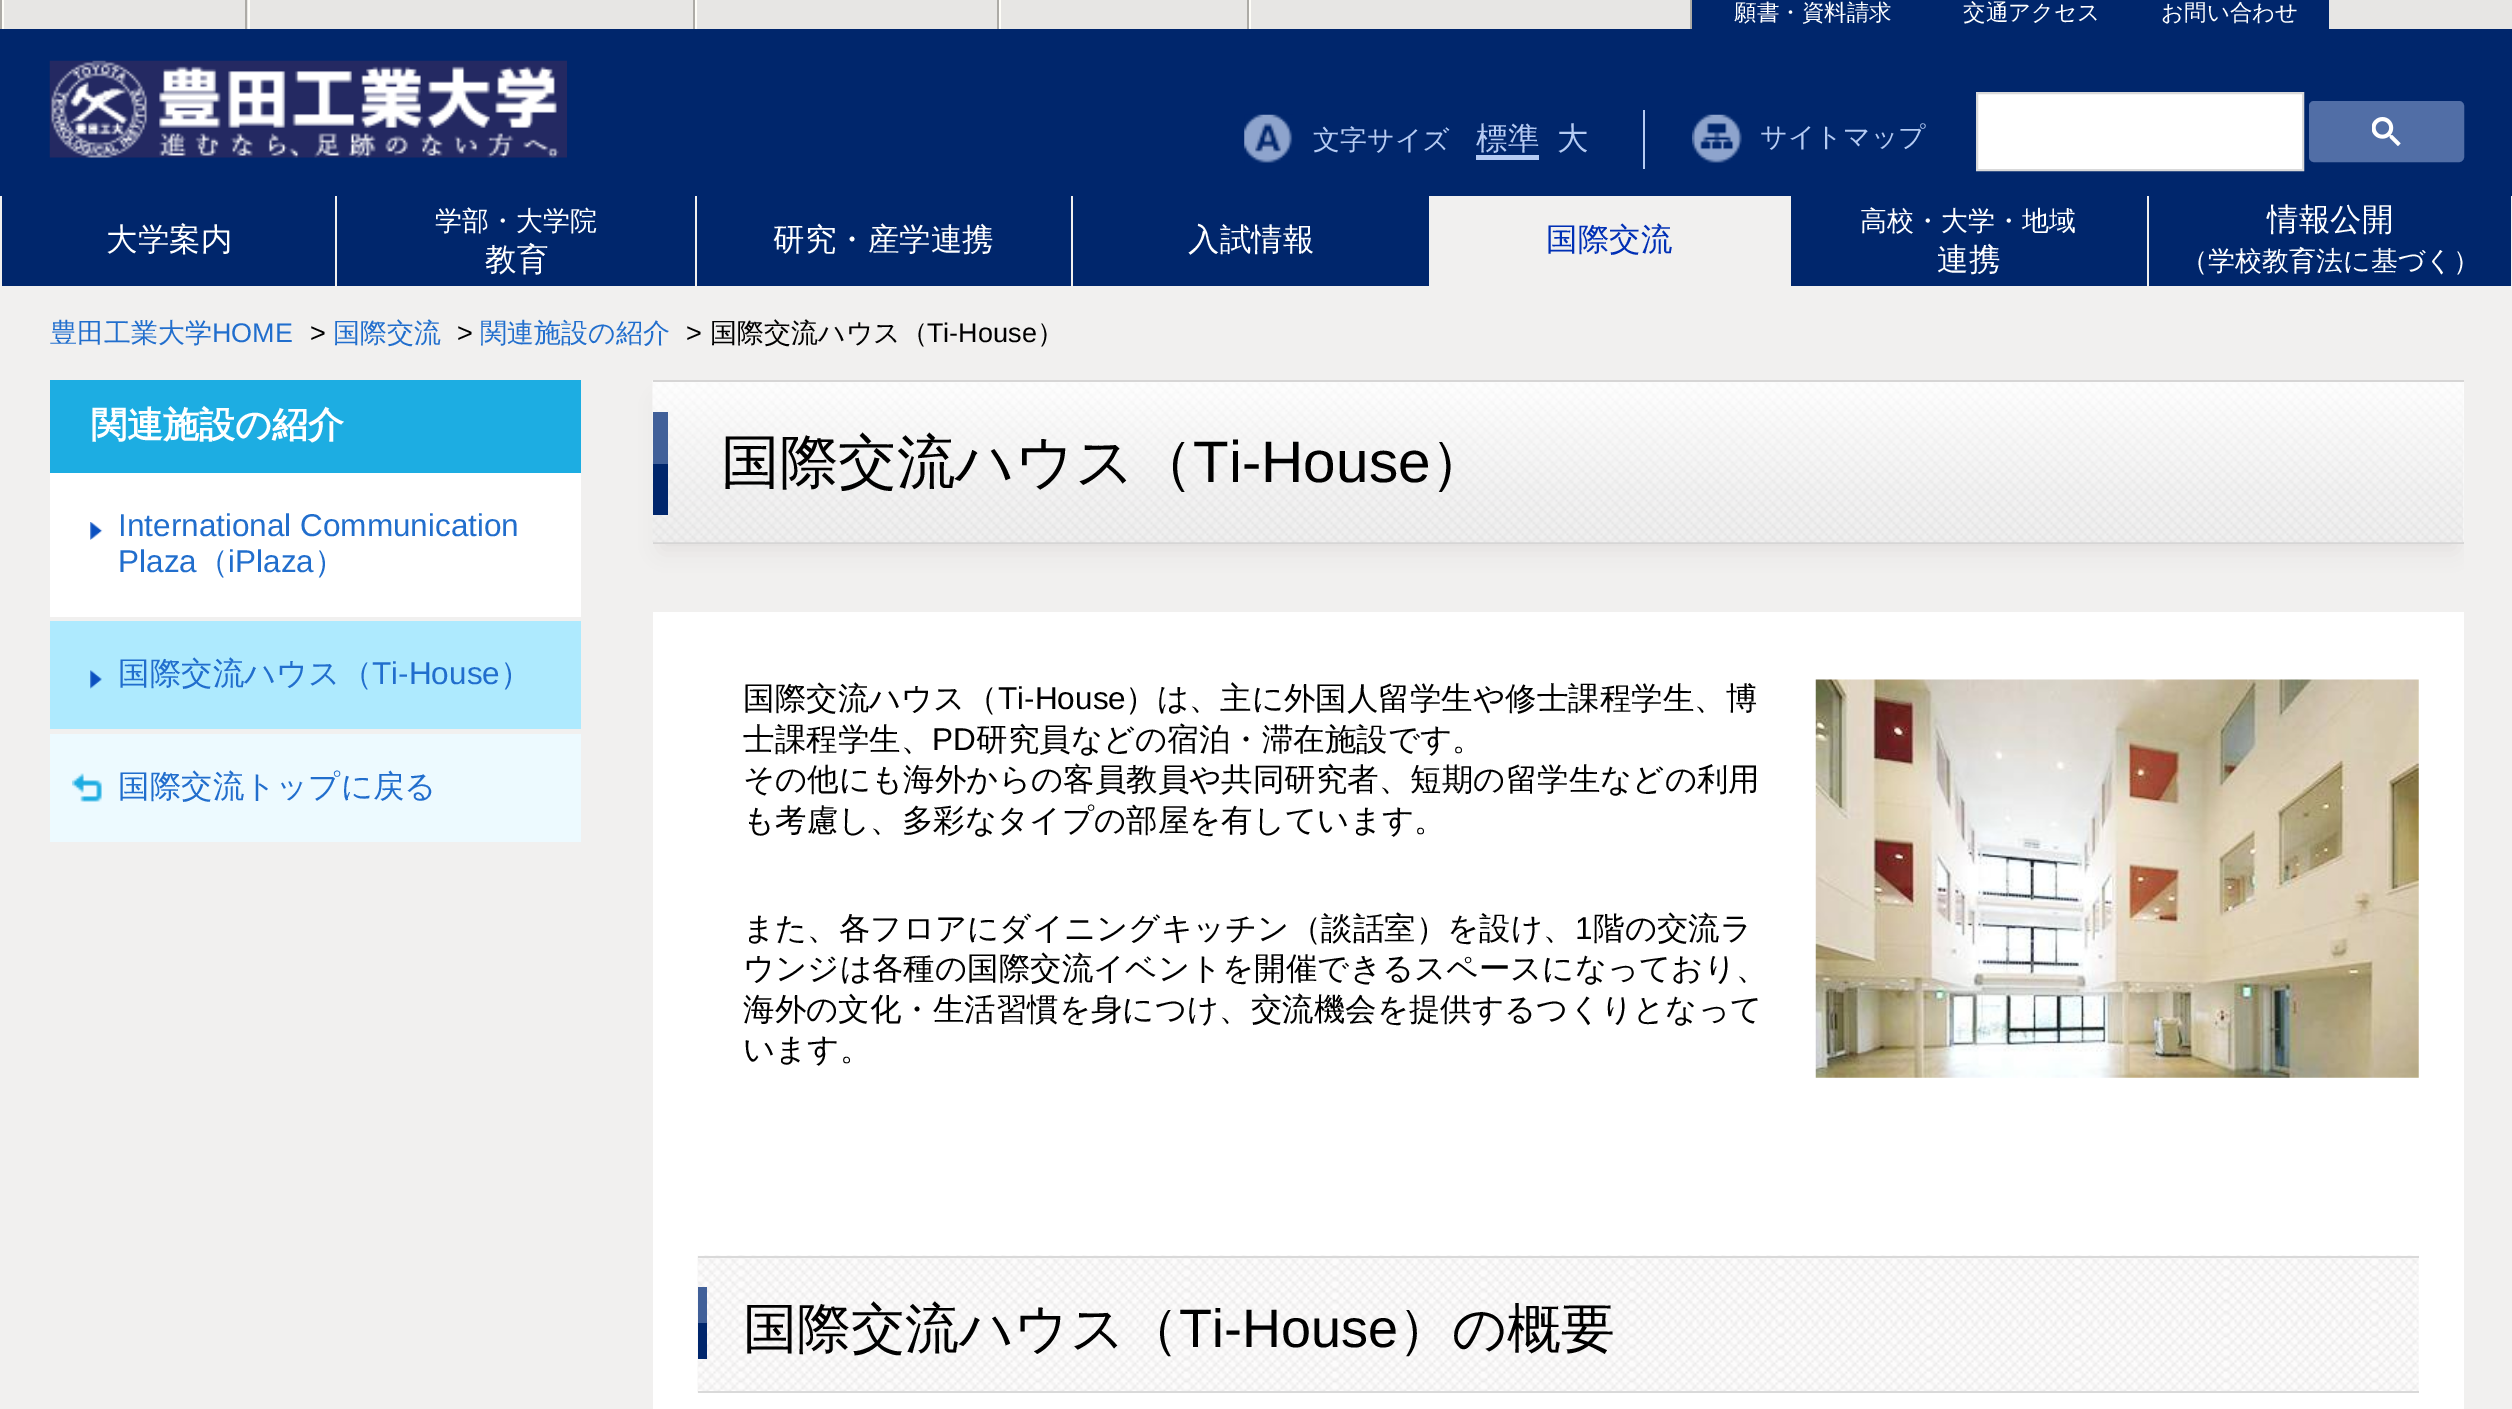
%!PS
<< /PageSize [2512 1409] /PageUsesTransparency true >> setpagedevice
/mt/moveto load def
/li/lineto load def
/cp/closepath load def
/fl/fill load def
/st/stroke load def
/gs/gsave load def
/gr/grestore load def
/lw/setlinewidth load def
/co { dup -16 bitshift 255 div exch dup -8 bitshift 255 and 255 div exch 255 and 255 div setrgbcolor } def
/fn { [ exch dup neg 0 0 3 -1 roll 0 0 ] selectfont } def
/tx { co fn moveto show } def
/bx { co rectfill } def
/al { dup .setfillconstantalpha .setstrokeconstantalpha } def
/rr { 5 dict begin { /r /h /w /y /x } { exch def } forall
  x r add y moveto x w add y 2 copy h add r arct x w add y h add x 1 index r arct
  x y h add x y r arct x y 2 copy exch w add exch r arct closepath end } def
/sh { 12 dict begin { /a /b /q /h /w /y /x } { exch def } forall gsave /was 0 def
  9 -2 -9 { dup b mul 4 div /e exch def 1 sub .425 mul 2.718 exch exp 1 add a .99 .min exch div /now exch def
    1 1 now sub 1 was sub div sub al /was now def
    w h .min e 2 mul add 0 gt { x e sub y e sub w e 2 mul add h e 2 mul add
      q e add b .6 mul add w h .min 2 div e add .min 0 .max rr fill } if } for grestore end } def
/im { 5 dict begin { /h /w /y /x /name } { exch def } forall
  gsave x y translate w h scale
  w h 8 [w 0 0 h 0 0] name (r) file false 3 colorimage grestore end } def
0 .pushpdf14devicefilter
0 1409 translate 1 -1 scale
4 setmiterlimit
0 0 2512 1409 16#F1F0EF bx
0 29 2512 257 16#00266C bx
4 0 2508 29 16#E7E6E4 bx
0 0 2 29 16#ADABA6 bx
245 0 2 29 16#ADABA6 bx
2 0 2 29 16#FEFDF8 bx
693 0 2 29 16#ADABA6 bx
248 0 2 29 16#FEFDF8 bx
997 0 2 29 16#ADABA6 bx
695 0 2 29 16#FEFDF8 bx
1247 0 2 29 16#ADABA6 bx
999 0 2 29 16#FEFDF8 bx
1690 0 2 29 16#ADABA6 bx
1249 0 2 29 16#FEFDF8 bx
1692 0 637 29 16#00266C bx
(media/1.raw) 49 60 518 98 im
(media/2.raw) 1244 114 49 49 im
1643 110 2 59 16#B5CBF3 bx
1476 155 63 5 16#B5CBF3 bx
(media/3.raw) 1692 114 50 49 im
16#FFFFFF co
1977 93 mt 2303 93 li 2303 170 li 1977 170 li cp gs fl gr
16#D9D9D9 co
2 lw
st
16#516EA6 co
2310 102 153 59 4 rr gs fl gr
st
(media/4.raw) 2372 117 29 29 im
335 196 2 90 16#F1F0EF bx
0 196 2 90 16#F1F0EF bx
695 196 2 90 16#F1F0EF bx
1071 196 2 90 16#F1F0EF bx
1429 196 362 90 16#F1F0EF bx
2147 196 2 90 16#F1F0EF bx
2511 196 1 90 16#F1F0EF bx
50 380 531 93 16#1DADE2 bx
50 473 531 144 16#FFFFFF bx
(media/5.raw) 90 522 13 18 im
50 621 531 108 16#AEEAFE bx
(media/6.raw) 90 670 12 19 im
50 734 531 108 16#EDFAFF bx
(media/7.raw) 72 773 30 29 im
gs
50 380 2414 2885 rectclip
16#E0DEDD co
662 403 1793 146 0 11 1 sh
gr
653 542 1811 2 16#D6D5D5 bx
2463 382 1 160 16#FFFFFF bx
(media/8.raw) 652 380 1812 163 im
653 380 1811 2 16#D6D5D5 bx
653 412 15 52 16#416099 bx
653 464 15 51 16#00266C bx
653 612 1811 797 16#FFFFFF bx
(media/9.raw) 1815 679 604 399 im
(media/10.raw) 697 1255 1722 138 im
698 1256 1721 2 16#D9D9D9 bx
698 1391 1721 2 16#D9D9D9 bx
698 1287 9 36 16#416099 bx
698 1323 9 36 16#00266C bx
(願書・資料請求) 1734 20 /WenQuanYiZenHei-Medium 22.5 16#FFFFFF tx
(交通アクセス) 1963 20 /WenQuanYiZenHei-Medium 22.5 16#FFFFFF tx
(お問い合わせ) 2161 20 /WenQuanYiZenHei-Medium 22.5 16#FFFFFF tx
(文字サイズ) 1313 149 /WenQuanYiZenHei-Medium 27 16#B5CBF3 tx
(標準) 1476 149 /WenQuanYiZenHei-Medium 31.5 16#B5CBF3 tx
(大) 1557 149 /WenQuanYiZenHei-Medium 31.5 16#B5CBF3 tx
(サイトマップ) 1760 146 /WenQuanYiZenHei-Medium 27 16#B5CBF3 tx
(大学案内) 106 250 /WenQuanYiZenHei-Medium 31.5 16#FFFFFF tx
(学部・大学院) 435 230 /WenQuanYiZenHei-Medium 27 16#FFFFFF tx
(教育) 485 270 /WenQuanYiZenHei-Medium 31.5 16#FFFFFF tx
(研究・産学連携) 773 250 /WenQuanYiZenHei-Medium 31.5 16#FFFFFF tx
(入試情報) 1188 250 /WenQuanYiZenHei-Medium 31.5 16#FFFFFF tx
(国際交流) 1546 250 /WenQuanYiZenHei-Medium 31.5 16#002FB5 tx
(高校・大学・地域) 1860 230 /WenQuanYiZenHei-Medium 27 16#FFFFFF tx
(連携) 1937 270 /WenQuanYiZenHei-Medium 31.5 16#FFFFFF tx
(情報公開) 2267 230 /WenQuanYiZenHei-Medium 31.5 16#FFFFFF tx
(（学校教育法に基づく）) 2181 270 /WenQuanYiZenHei-Medium 27 16#FFFFFF tx
(豊田工業大学) 50 342 /WenQuanYiZenHei-Medium 27 16#216ECD tx
(HOME) 212 342 /LiberationSans-Regular 27 16#216ECD tx
(>) 310 342 /LiberationSans-Regular 27 16#000000 tx
(国際交流) 333 342 /WenQuanYiZenHei-Medium 27 16#216ECD tx
(>) 457 342 /LiberationSans-Regular 27 16#000000 tx
(関連施設の紹介) 480 342 /WenQuanYiZenHei-Medium 27 16#216ECD tx
(>) 686 342 /LiberationSans-Regular 27 16#000000 tx
(国際交流ハウス（) 710 342 /WenQuanYiZenHei-Medium 27 16#000000 tx
(Ti-House) 927 342 /LiberationSans-Regular 27 16#000000 tx
(）) 1037 342 /WenQuanYiZenHei-Medium 27 16#000000 tx
(関連施設の紹介) 91 437 /WenQuanYiZenHei-Bold 36 16#FFFFFF tx
(International Communication) 118 536 /LiberationSans-Regular 31.5 16#216ECD tx
(Plaza) 118 572 /LiberationSans-Regular 31.5 16#216ECD tx
(（) 197 572 /WenQuanYiZenHei-Medium 31.5 16#216ECD tx
(iPlaza) 228 572 /LiberationSans-Regular 31.5 16#216ECD tx
(）) 314 572 /WenQuanYiZenHei-Medium 31.5 16#216ECD tx
(国際交流ハウス（) 118 684 /WenQuanYiZenHei-Medium 31.5 16#216ECD tx
(Ti-House) 372 684 /LiberationSans-Regular 31.5 16#216ECD tx
(）) 500 684 /WenQuanYiZenHei-Medium 31.5 16#216ECD tx
(国際交流トップに戻る) 118 797 /WenQuanYiZenHei-Medium 31.5 16#216ECD tx
(国際交流ハウス（) 721 482 /WenQuanYiZenHei-Medium 58.5 16#000000 tx
(Ti-House) 1193 482 /LiberationSans-Regular 58.5 16#000000 tx
(）) 1430 482 /WenQuanYiZenHei-Medium 58.5 16#000000 tx
(国際交流ハウス（) 743 709 /WenQuanYiZenHei-Medium 31.5 16#000000 tx
(Ti-House) 998 709 /LiberationSans-Regular 31.5 16#000000 tx
(）は、主に外国人留学生や修士課程学生、博) 1125 709 /WenQuanYiZenHei-Medium 31.5 16#000000 tx
(士課程学生、) 743 750 /WenQuanYiZenHei-Medium 31.5 16#000000 tx
(PD) 932 750 /LiberationSans-Regular 31.5 16#000000 tx
(研究員などの宿泊・滞在施設です。) 976 750 /WenQuanYiZenHei-Medium 31.5 16#000000 tx
(その他にも海外からの客員教員や共同研究者、短期の留学生などの利用) 743 790 /WenQuanYiZenHei-Medium 31.5 16#000000 tx
(も考慮し、多彩なタイプの部屋を有しています。) 743 831 /WenQuanYiZenHei-Medium 31.5 16#000000 tx
(また、各フロアにダイニングキッチン（談話室）を設け、) 743 939 /WenQuanYiZenHei-Medium 31.5 16#000000 tx
(1) 1575 939 /LiberationSans-Regular 31.5 16#000000 tx
(階の交流ラ) 1593 939 /WenQuanYiZenHei-Medium 31.5 16#000000 tx
(ウンジは各種の国際交流イベントを開催できるスペースになっており、) 743 979 /WenQuanYiZenHei-Medium 31.5 16#000000 tx
(海外の文化・生活習慣を身につけ、交流機会を提供するつくりとなって) 743 1020 /WenQuanYiZenHei-Medium 31.5 16#000000 tx
(います。) 743 1060 /WenQuanYiZenHei-Medium 31.5 16#000000 tx
(国際交流ハウス（) 743 1347 /WenQuanYiZenHei-Medium 54 16#000000 tx
(Ti-House) 1179 1347 /LiberationSans-Regular 54 16#000000 tx
(）の概要) 1398 1347 /WenQuanYiZenHei-Medium 54 16#000000 tx
.poppdf14devicefilter showpage
